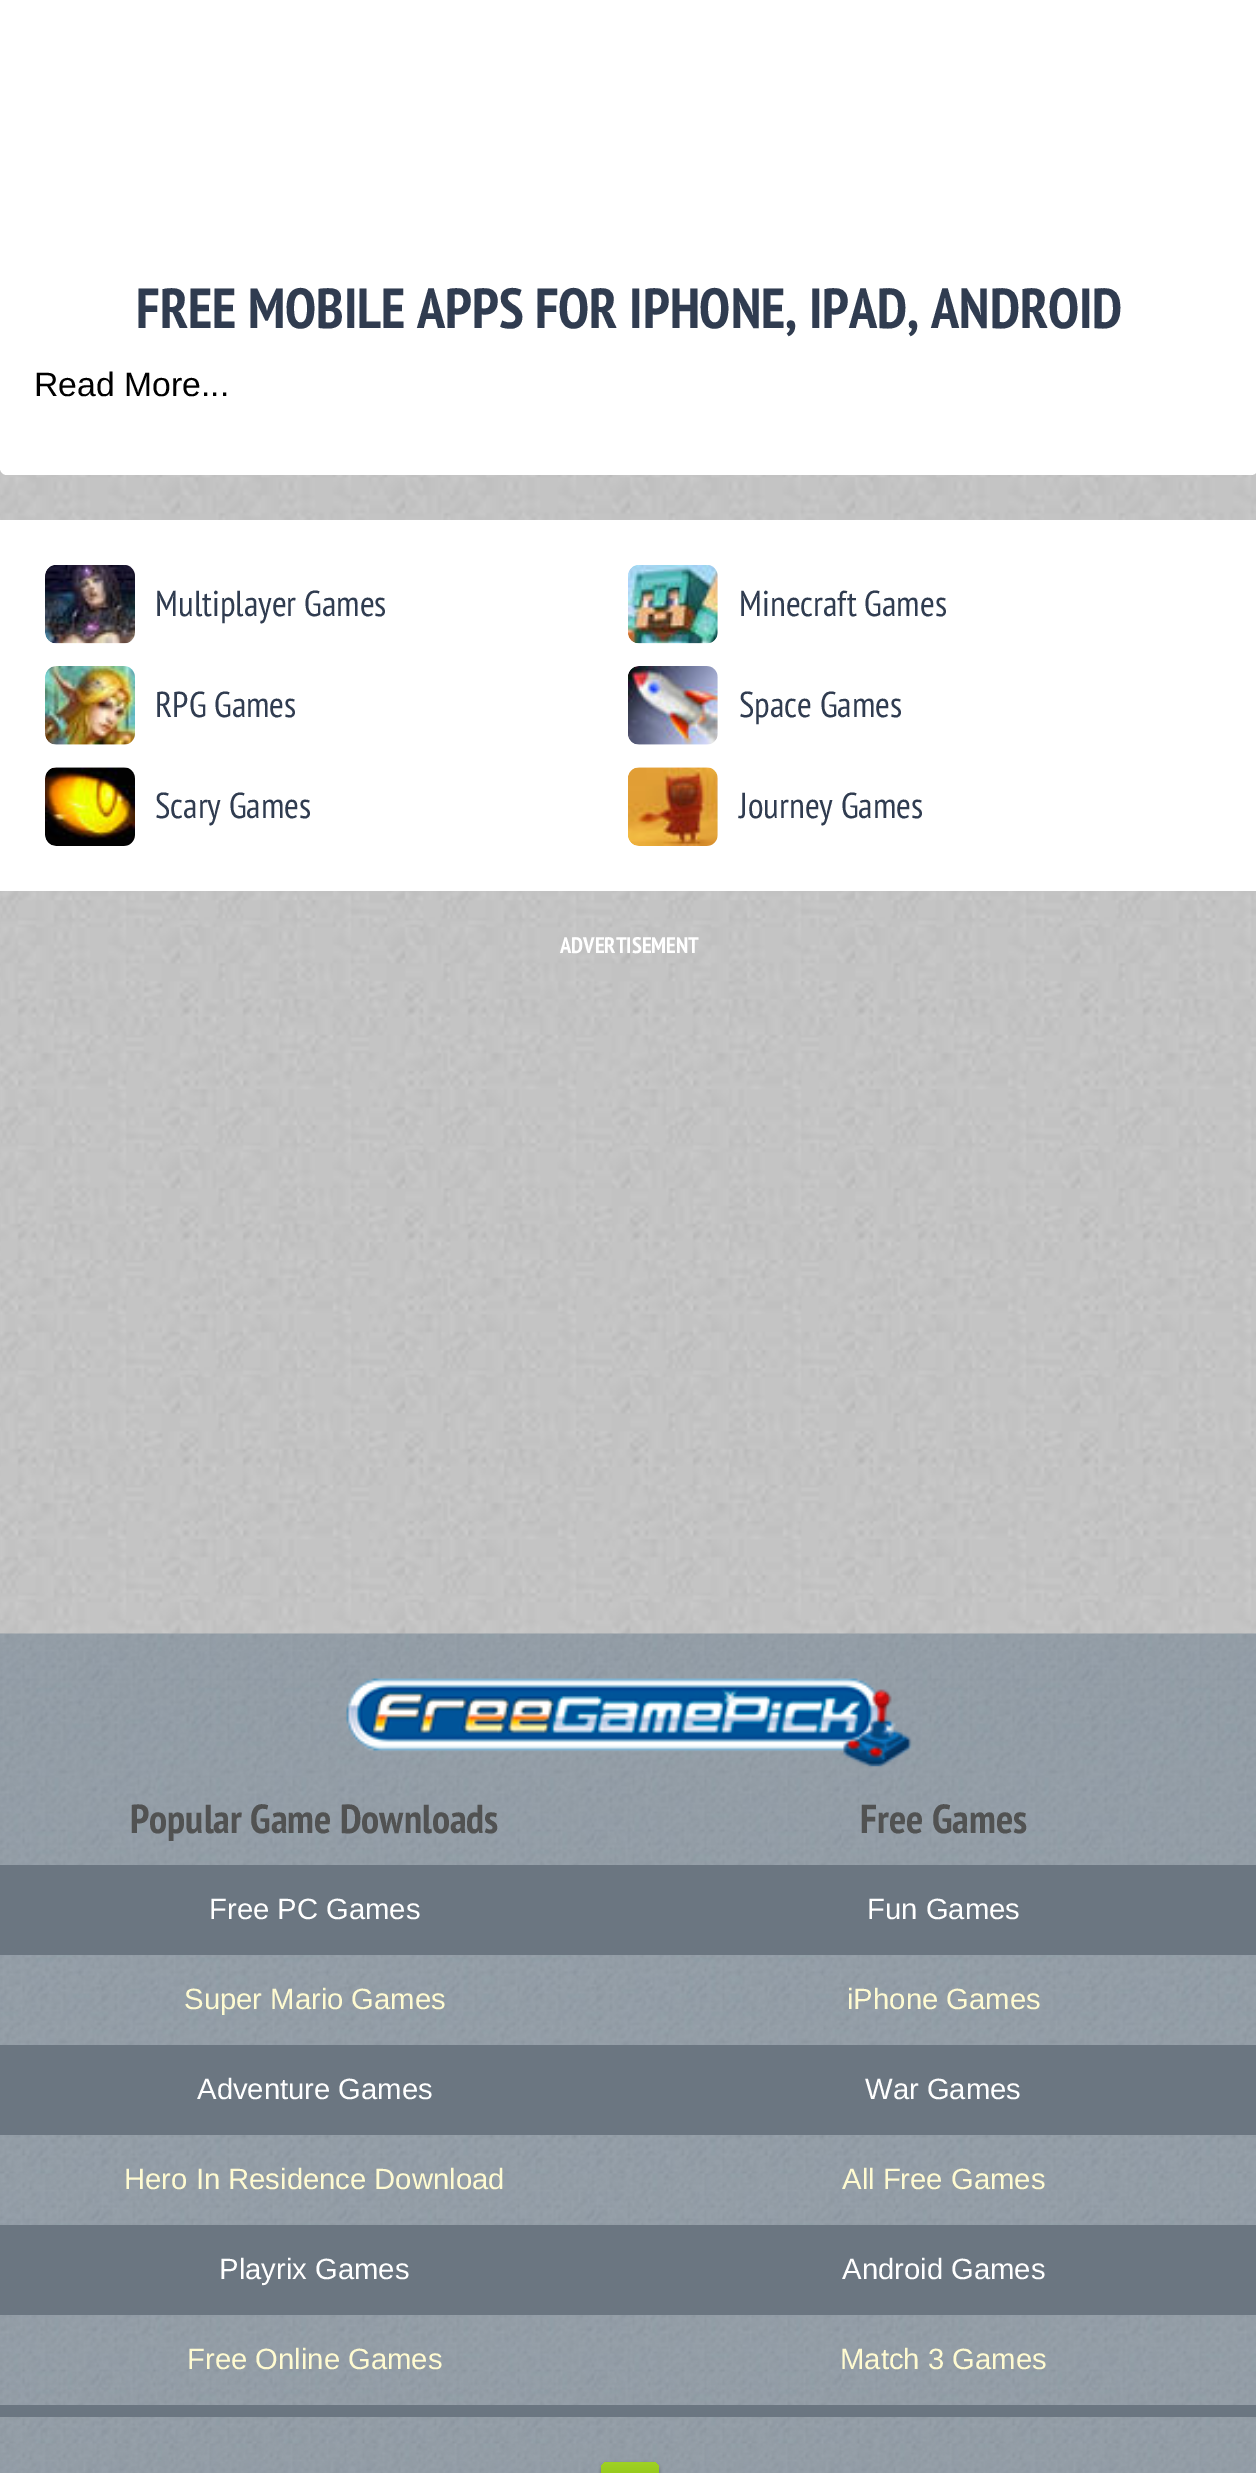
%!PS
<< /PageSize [1256 2473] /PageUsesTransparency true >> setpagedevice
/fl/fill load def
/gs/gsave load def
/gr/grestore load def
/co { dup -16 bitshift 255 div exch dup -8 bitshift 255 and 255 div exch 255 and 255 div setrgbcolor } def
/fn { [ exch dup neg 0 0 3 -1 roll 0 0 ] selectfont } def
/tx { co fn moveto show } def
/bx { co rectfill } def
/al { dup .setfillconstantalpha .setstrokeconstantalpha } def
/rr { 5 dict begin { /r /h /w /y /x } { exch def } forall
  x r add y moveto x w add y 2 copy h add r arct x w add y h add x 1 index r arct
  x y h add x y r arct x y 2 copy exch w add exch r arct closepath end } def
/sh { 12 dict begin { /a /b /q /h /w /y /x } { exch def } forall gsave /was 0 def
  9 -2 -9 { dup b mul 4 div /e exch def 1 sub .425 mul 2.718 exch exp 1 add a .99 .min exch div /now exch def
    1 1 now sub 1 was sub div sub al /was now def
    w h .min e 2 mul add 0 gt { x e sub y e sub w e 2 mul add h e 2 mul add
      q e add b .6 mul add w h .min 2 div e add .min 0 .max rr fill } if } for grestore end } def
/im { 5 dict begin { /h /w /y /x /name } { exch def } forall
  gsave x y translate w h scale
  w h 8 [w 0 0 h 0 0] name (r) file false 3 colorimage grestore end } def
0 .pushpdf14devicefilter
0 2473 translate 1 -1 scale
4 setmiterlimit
0 0 1256 2473 16#FFFFFF bx
(media/1.raw) 0 468 1256 1166 im
0 -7 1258 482 7 rr fl
0 520 1256 371 16#FFFFFF bx
(media/2.raw) 45 565 90 79 im
(media/3.raw) 628 565 90 79 im
(media/4.raw) 45 666 90 79 im
(media/5.raw) 628 666 90 79 im
(media/6.raw) 45 767 90 79 im
(media/7.raw) 628 767 90 79 im
(media/8.raw) 0 1633 1256 840 im
(media/9.raw) 346 1678 566 89 im
0 1865 1256 90 16#6B7681 bx
0 2045 1256 90 16#6B7681 bx
0 2225 1256 90 16#6B7681 bx
0 2405 1256 12 16#6B7681 bx
16#323232 co
601 2464 58 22 7 2 .5 sh
gs 601 2462 58 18 7 rr clip newpath
<< /ShadingType 2 /ColorSpace /DeviceRGB /Coords [630 2462 630 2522] /Extend [true true] /Function << /FunctionType 2 /Domain [0 1] /C0 [.624 .82 .141] /C1 [.467 .663 0] /N 1 >> >> shfill gr
(FREE MOBILE APPS FOR IPHONE, IPAD, ANDROID) 136 328 /PTSansNarrow-Bold 56.25 16#303C50 tx
(Read More...) 34 396 /LiberationSans-Regular 33.75 16#000000 tx
(Multiplayer Games) 155 616 /PTSansNarrow-Regular 36 16#303C50 tx
(Minecraft Games) 739 616 /PTSansNarrow-Regular 36 16#303C50 tx
(RPG Games) 155 717 /PTSansNarrow-Regular 36 16#303C50 tx
(Space Games) 739 717 /PTSansNarrow-Regular 36 16#303C50 tx
(Scary Games) 155 818 /PTSansNarrow-Regular 36 16#303C50 tx
(Journey Games) 739 818 /PTSansNarrow-Regular 36 16#303C50 tx
(ADVERTISEMENT) 560 953 /PTSansNarrow-Bold 22.5 16#FFFFFF tx
(Popular Game Downloads) 130 1833 /PTSansNarrow-Bold 40.5 16#515252 tx
(Free PC Games) 209 1919 /LiberationSans-Regular 29.25 16#FFFFFF tx
(Super Mario Games) 184 2009 /LiberationSans-Regular 29.25 16#FFFBD1 tx
(Adventure Games) 197 2099 /LiberationSans-Regular 29.25 16#FFFFFF tx
(Hero In Residence Download) 124 2189 /LiberationSans-Regular 29.25 16#FFFBD1 tx
(Playrix Games) 219 2279 /LiberationSans-Regular 29.25 16#FFFFFF tx
(Free Online Games) 187 2369 /LiberationSans-Regular 29.25 16#FFFBD1 tx
(Free Games) 860 1833 /PTSansNarrow-Bold 40.5 16#515252 tx
(Fun Games) 867 1919 /LiberationSans-Regular 29.25 16#FFFFFF tx
(iPhone Games) 847 2009 /LiberationSans-Regular 29.25 16#FFFBD1 tx
(War Games) 865 2099 /LiberationSans-Regular 29.25 16#FFFFFF tx
(All Free Games) 842 2189 /LiberationSans-Regular 29.25 16#FFFBD1 tx
(Android Games) 842 2279 /LiberationSans-Regular 29.25 16#FFFFFF tx
(Match 3 Games) 840 2369 /LiberationSans-Regular 29.25 16#FFFBD1 tx
.poppdf14devicefilter showpage
